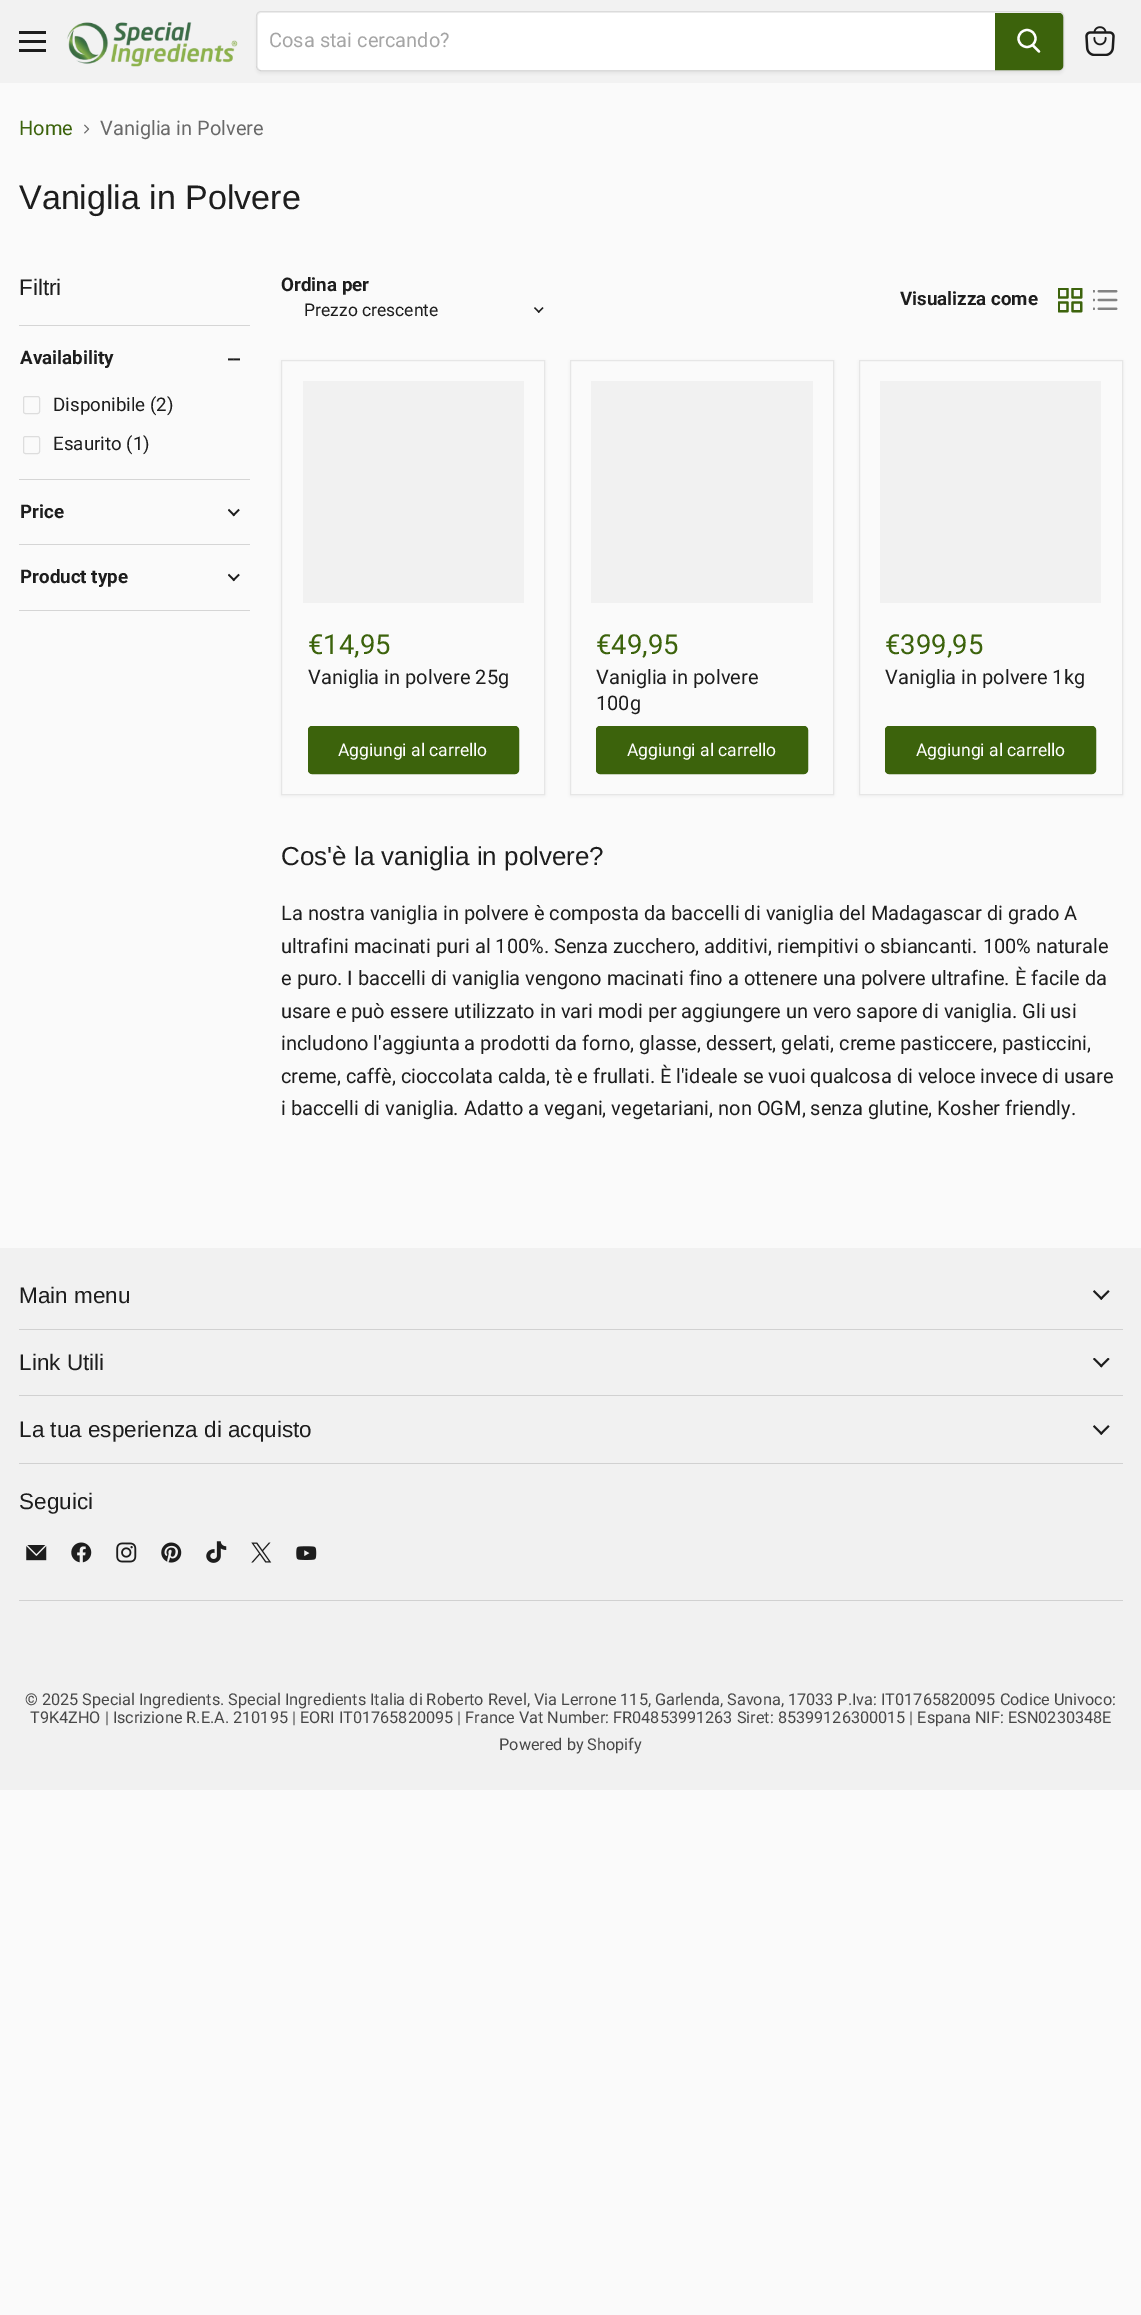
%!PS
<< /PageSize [1141 2315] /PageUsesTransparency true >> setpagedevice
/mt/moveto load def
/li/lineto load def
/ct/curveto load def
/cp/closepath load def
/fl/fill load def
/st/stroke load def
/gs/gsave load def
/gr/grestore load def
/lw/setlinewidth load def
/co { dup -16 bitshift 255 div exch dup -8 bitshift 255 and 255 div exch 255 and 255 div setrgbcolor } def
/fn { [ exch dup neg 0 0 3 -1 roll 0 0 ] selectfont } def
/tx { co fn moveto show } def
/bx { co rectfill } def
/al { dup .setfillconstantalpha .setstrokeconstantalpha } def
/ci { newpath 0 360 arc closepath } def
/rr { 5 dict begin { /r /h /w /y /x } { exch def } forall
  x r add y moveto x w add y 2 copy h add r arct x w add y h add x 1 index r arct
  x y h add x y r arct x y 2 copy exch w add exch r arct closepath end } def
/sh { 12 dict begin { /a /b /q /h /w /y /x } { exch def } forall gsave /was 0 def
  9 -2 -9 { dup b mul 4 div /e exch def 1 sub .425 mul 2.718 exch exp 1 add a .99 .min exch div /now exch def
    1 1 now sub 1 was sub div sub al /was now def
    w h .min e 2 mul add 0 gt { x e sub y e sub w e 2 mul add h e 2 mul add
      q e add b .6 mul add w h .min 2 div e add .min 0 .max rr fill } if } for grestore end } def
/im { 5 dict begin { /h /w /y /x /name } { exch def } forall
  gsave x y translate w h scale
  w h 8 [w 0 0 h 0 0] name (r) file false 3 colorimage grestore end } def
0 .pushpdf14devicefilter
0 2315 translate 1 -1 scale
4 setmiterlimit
0 0 1141 2315 16#FAFAFA bx
0 0 1141 83 16#F2F2F2 bx
19 31 27 3 16#1D1D1D bx
19 40 27 3 16#1D1D1D bx
19 49 27 3 16#1D1D1D bx
(media/1.raw) 67 22 171 45 im
gs
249 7 mt 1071 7 li 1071 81 li 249 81 li cp 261 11 mt 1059 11 li 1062 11 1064 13 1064 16 ct 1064 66 li 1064 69 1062 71 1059 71 ct 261 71 li 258 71 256 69 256 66 ct 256 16 li 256 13 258 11 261 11 ct cp eoclip newpath
16#7D7D7D co
256 14 808 60 5 2 .11 sh
gr
0.2 al
16#7D7D7D co
256.5 11.5 807 59 4.5 rr st
1 al
16#FFFFFF co
262 13 mt 995 13 li 995 70 li 262 70 li 260 70 258 68 258 66 ct 258 17 li 258 15 260 13 262 13 ct cp fl
16#3C630C co
995.5 13.5 mt 1059 13.5 li 1061 13.5 1062.5 15 1062.5 17 ct 1062.5 66 li 1062.5 68 1061 69.5 1059 69.5 ct 995.5 69.5 li cp gs fl gr
st
16#FFFFFF co
2.2 lw
1 setlinecap
1039 51.5 mt 1033 45.5 li st
0 setlinecap
1027 38.5 8.5 ci st
(media/2.raw) 1085 26 30 30 im
(media/3.raw) 84 124 6 10 im
19 325 231 1 16#D5D5D5 bx
(media/4.raw) 228 358 12 3 im
16#DDDDDD co
1 lw
23.5 396.5 16 17 2 rr st
23.5 436.5 16 17 2 rr st
19 479 231 1 16#D5D5D5 bx
(media/5.raw) 228 508 12 9 im
19 544 231 1 16#D5D5D5 bx
19 610 231 1 16#D5D5D5 bx
(media/6.raw) 228 573 12 9 im
(media/7.raw) 534 307 10 6 im
(media/8.raw) 1058 288 25 25 im
(media/9.raw) 1093 290 25 20 im
16#7D7D7D co
281 361 264 435 0 2.5 .11 sh
16#FAFAFA co
281.5 360.5 mt 544.5 360.5 li 544.5 794.5 li 281.5 794.5 li cp gs fl gr
16#E6E6E6 co
st
303 381 221 222 16#F1F1F1 bx
16#3C630C co
308.5 726.5 210 47 3.5 rr gs fl gr
st
16#7D7D7D co
570 361 264 435 0 2.5 .11 sh
16#FAFAFA co
570.5 360.5 mt 833.5 360.5 li 833.5 794.5 li 570.5 794.5 li cp gs fl gr
16#E6E6E6 co
st
591 381 222 222 16#F1F1F1 bx
16#3C630C co
596.5 726.5 211 47 3.5 rr gs fl gr
st
16#7D7D7D co
859 361 264 435 0 2.5 .11 sh
16#FAFAFA co
859.5 360.5 mt 1122.5 360.5 li 1122.5 794.5 li 859.5 794.5 li cp gs fl gr
16#E6E6E6 co
st
880 381 221 222 16#F1F1F1 bx
16#3C630C co
885.5 726.5 210 47 3.5 rr gs fl gr
st
0 1248 1141 542 16#F1F1F1 bx
19 1329 1104 1 16#D1D1D1 bx
(media/10.raw) 1093 1290 17 10 im
19 1395 1104 1 16#D1D1D1 bx
(media/11.raw) 1093 1358 17 10 im
19 1463 1104 1 16#D1D1D1 bx
(media/10.raw) 1093 1425 17 10 im
19 1600 1104 1 16#D1D1D1 bx
(media/12.raw) 26 1545 21 16 im
(media/13.raw) 71 1542 21 21 im
(media/14.raw) 116 1542 21 21 im
(media/15.raw) 161 1542 21 21 im
(media/16.raw) 206 1541 21 22 im
(media/17.raw) 251 1542 21 21 im
(media/18.raw) 296 1546 21 14 im
(Cosa stai cercando?) 269 47 /Roboto-Regular 20 16#A5A5A5 tx
(Home) 19 135 /Roboto-Regular 20 16#3C630C tx
(Vaniglia in Polvere) 100 135 /Roboto-Regular 20 16#696969 tx
(Vaniglia in Polvere) 19 209 /LiberationSans-Regular 34 16#1D1D1D tx
(Filtri) 19 295 /LiberationSans-Regular 22.5 16#1D1D1D tx
(Availability) 20 364 /Roboto-Bold 18.75 16#1D1D1D tx
(Disponibile \(2\)) 53 411 /Roboto-Regular 18.75 16#1D1D1D tx
(Esaurito \(1\)) 53 450 /Roboto-Regular 18.75 16#1D1D1D tx
(Price) 20 518 /Roboto-Bold 18.75 16#1D1D1D tx
(Product type) 20 583 /Roboto-Bold 18.75 16#1D1D1D tx
(Ordina per) 281 291 /Roboto-Bold 18.75 16#1D1D1D tx
(Prezzo crescente) 304 316 /Roboto-Regular 17.5 16#1D1D1D tx
(Visualizza come) 900 305 /Roboto-Bold 18.75 16#1D1D1D tx
(€14,95) 308 654 /Roboto-Regular 27.5 16#3C630C tx
(Vaniglia in polvere 25g) 308 684 /Roboto-Regular 20 16#1D1D1D tx
(Aggiungi al carrello) 338 756 /Roboto-Regular 17.5 16#FFFFFF tx
(€49,95) 596 654 /Roboto-Regular 27.5 16#3C630C tx
(Vaniglia in polvere) 596 684 /Roboto-Regular 20 16#1D1D1D tx
(100g) 596 710 /Roboto-Regular 20 16#1D1D1D tx
(Aggiungi al carrello) 627 756 /Roboto-Regular 17.5 16#FFFFFF tx
(€399,95) 885 654 /Roboto-Regular 27.5 16#3C630C tx
(Vaniglia in polvere 1kg) 885 684 /Roboto-Regular 20 16#1D1D1D tx
(Aggiungi al carrello) 916 756 /Roboto-Regular 17.5 16#FFFFFF tx
(Cos'è la vaniglia in polvere?) 281 865 /LiberationSans-Regular 26 16#1D1D1D tx
(La nostra vaniglia in polvere è composta da baccelli di vaniglia del Madagascar di grado A) 281 920 /Roboto-Regular 20 16#1D1D1D tx
(ultrafini macinati puri al 100%. Senza zucchero, additivi, riempitivi o sbiancanti. 100% naturale) 281 953 /Roboto-Regular 20 16#1D1D1D tx
(e puro. I baccelli di vaniglia vengono macinati fino a ottenere una polvere ultrafine. È facile da) 281 985 /Roboto-Regular 20 16#1D1D1D tx
(usare e può essere utilizzato in vari modi per aggiungere un vero sapore di vaniglia. Gli usi) 281 1018 /Roboto-Regular 20 16#1D1D1D tx
(includono l'aggiunta a prodotti da forno, glasse, dessert, gelati, creme pasticcere, pasticcini,) 281 1050 /Roboto-Regular 20 16#1D1D1D tx
(creme, caffè, cioccolata calda, tè e frullati. È l'ideale se vuoi qualcosa di veloce invece di usare) 281 1083 /Roboto-Regular 20 16#1D1D1D tx
(i baccelli di vaniglia. Adatto a vegani, vegetariani, non OGM, senza glutine, Kosher friendly.) 281 1115 /Roboto-Regular 20 16#1D1D1D tx
(Main menu) 19 1303 /LiberationSans-Regular 22.5 16#1D1D1D tx
(Link Utili) 19 1370 /LiberationSans-Regular 22.5 16#1D1D1D tx
(La tua esperienza di acquisto) 19 1437 /LiberationSans-Regular 22.5 16#1D1D1D tx
(Seguici) 19 1509 /LiberationSans-Regular 22.5 16#1D1D1D tx
(© 2025 Special Ingredients. Special Ingredients Italia di Roberto Revel, Via Lerrone 115, Garlenda, Savona, 17033 P.Iva: IT01765820095 Codice Univoco:) 25 1705 /Roboto-Regular 16.25 16#474747 tx
(T9K4ZHO | Iscrizione R.E.A. 210195 | EORI IT01765820095 | France Vat Number: FR04853991263 Siret: 85399126300015 | Espana NIF: ESN0230348E) 30 1723 /Roboto-Regular 16.25 16#474747 tx
(Powered by Shopify) 499 1750 /Roboto-Regular 16.25 16#474747 tx
.poppdf14devicefilter showpage
